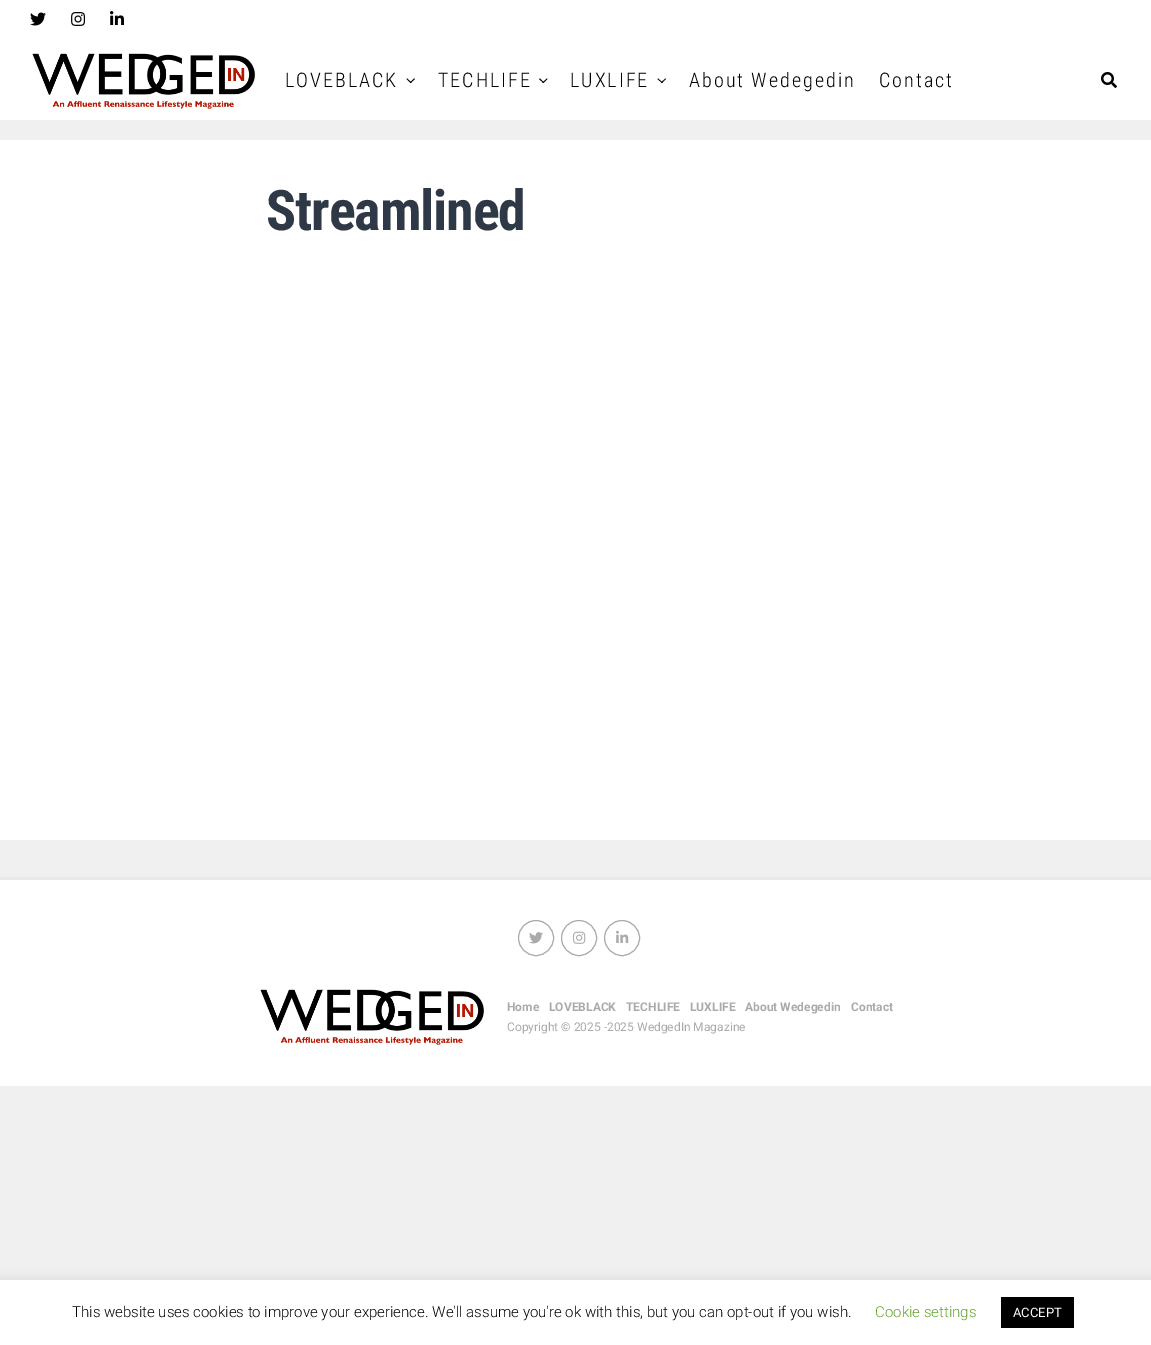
%!PS
<< /PageSize [1151 1345] /PageUsesTransparency true >> setpagedevice
/mt/moveto load def
/li/lineto load def
/cp/closepath load def
/fl/fill load def
/st/stroke load def
/co { dup -16 bitshift 255 div exch dup -8 bitshift 255 and 255 div exch 255 and 255 div setrgbcolor } def
/fn { [ exch dup neg 0 0 3 -1 roll 0 0 ] selectfont } def
/tx { co fn moveto show } def
/bx { co rectfill } def
/al { dup .setfillconstantalpha .setstrokeconstantalpha } def
/ci { newpath 0 360 arc closepath } def
/rr { 5 dict begin { /r /h /w /y /x } { exch def } forall
  x r add y moveto x w add y 2 copy h add r arct x w add y h add x 1 index r arct
  x y h add x y r arct x y 2 copy exch w add exch r arct closepath end } def
/sh { 12 dict begin { /a /b /q /h /w /y /x } { exch def } forall gsave /was 0 def
  9 -2 -9 { dup b mul 4 div /e exch def 1 sub .425 mul 2.718 exch exp 1 add a .99 .min exch div /now exch def
    1 1 now sub 1 was sub div sub al /was now def
    w h .min e 2 mul add 0 gt { x e sub y e sub w e 2 mul add h e 2 mul add
      q e add b .6 mul add w h .min 2 div e add .min 0 .max rr fill } if } for grestore end } def
/im { 5 dict begin { /h /w /y /x /name } { exch def } forall
  gsave x y translate w h scale
  w h 8 [w 0 0 h 0 0] name (r) file false 3 colorimage grestore end } def
0 .pushpdf14devicefilter
0 1345 translate 1 -1 scale
4 setmiterlimit
0 0 1151 1345 16#F0F0F0 bx
0 0 1151 120 16#FFFFFF bx
(media/1.raw) 30 12 16 14 im
(media/2.raw) 71 12 14 14 im
(media/3.raw) 110 11 14 14 im
(media/4.raw) 32 53 226 56 im
16#000000 co
414 78.5 mt 415 79 li 410.5 83 li 410 82.5 li cp fl
407 78.5 mt 411.5 82.5 li 410.5 83 li 406.5 79 li cp fl
547 78.5 mt 547.5 79 li 543.5 83 li 542.5 82.5 li cp fl
540 78.5 mt 544 82.5 li 543.5 83 li 539 79 li cp fl
665.5 78.5 mt 666 79 li 662 83 li 661 82.5 li cp fl
658 78.5 mt 662.5 82.5 li 662 83 li 657.5 79 li cp fl
(media/5.raw) 1101 72 16 16 im
0 140 1151 700 16#FFFFFF bx
0 880 1151 206 16#FFFFFF bx
0 877 1151 3 16#E9E9E9 bx
16#AAAAAA co
536 938 17.5 ci st
(media/6.raw) 529 932 14 12 im
579 938 17.5 ci st
(media/7.raw) 573 931 13 13 im
622 938 17.5 ci st
(media/8.raw) 616 930 13 13 im
(media/9.raw) 260 989 224 56 im
16#ACABAB co
0 1279 1151 65 0 5 .3 sh
0 1280 1151 65 16#FFFFFF bx
1001 1297 73 31 16#000000 bx
/RobotoCondensed-Light 20 fn
285 87 mt 2 0 (LOVEBLACK) ashow
438 87 mt 2 0 (TECHLIFE) ashow
570 87 mt 2 0 (LUXLIFE) ashow
689 87 mt 2 0 (About Wedegedin) ashow
879 87 mt 2 0 (Contact) ashow
/RobotoCondensed-Bold 56 fn
16#2F3846 co
266 230 mt -1.1 0 (Streamlined) ashow
(Home) 507 1011 /Roboto-Bold 12 16#AAAAAA tx
(LOVEBLACK) 549 1011 /Roboto-Bold 12 16#AAAAAA tx
(TECHLIFE) 626 1011 /Roboto-Bold 12 16#AAAAAA tx
(LUXLIFE) 690 1011 /Roboto-Bold 12 16#AAAAAA tx
(About Wedegedin) 745 1011 /Roboto-Bold 12 16#AAAAAA tx
(Contact) 851 1011 /Roboto-Bold 12 16#AAAAAA tx
(Copyright © 2025 -2025 WedgedIn Magazine) 507 1031 /Roboto-Regular 12 16#AAAAAA tx
(This website uses cookies to improve your experience. We'll assume you're ok with this, but you can opt-out if you wish.) 72 1317 /Roboto-Light 15 16#000000 tx
(Cookie settings) 875 1317 /Roboto-Light 15 16#62A329 tx
(ACCEPT) 1013 1317 /Roboto-Regular 13 16#FFFFFF tx
.poppdf14devicefilter showpage
